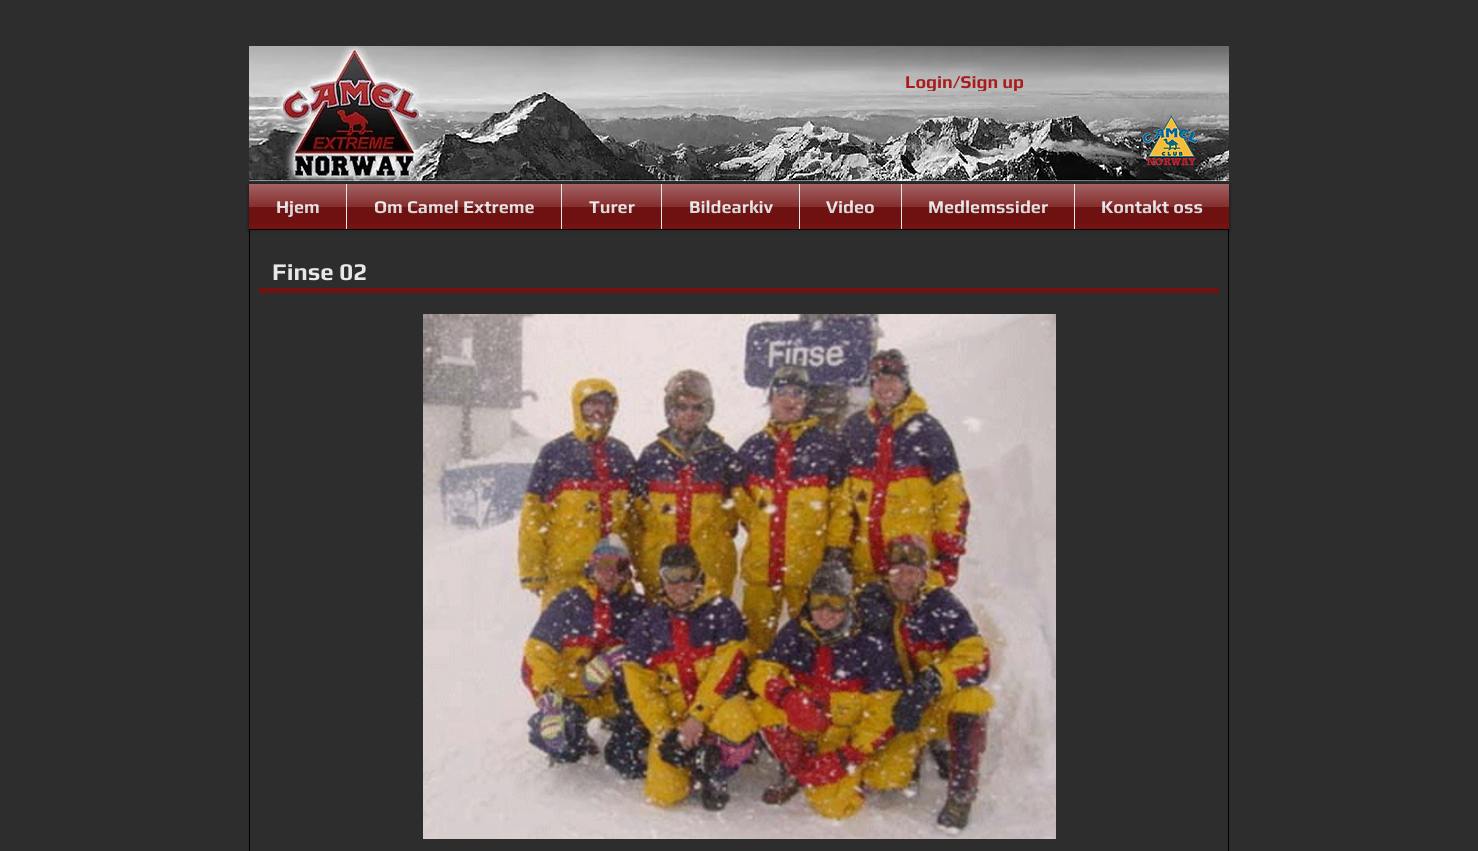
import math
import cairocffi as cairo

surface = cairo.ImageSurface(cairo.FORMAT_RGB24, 1478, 851)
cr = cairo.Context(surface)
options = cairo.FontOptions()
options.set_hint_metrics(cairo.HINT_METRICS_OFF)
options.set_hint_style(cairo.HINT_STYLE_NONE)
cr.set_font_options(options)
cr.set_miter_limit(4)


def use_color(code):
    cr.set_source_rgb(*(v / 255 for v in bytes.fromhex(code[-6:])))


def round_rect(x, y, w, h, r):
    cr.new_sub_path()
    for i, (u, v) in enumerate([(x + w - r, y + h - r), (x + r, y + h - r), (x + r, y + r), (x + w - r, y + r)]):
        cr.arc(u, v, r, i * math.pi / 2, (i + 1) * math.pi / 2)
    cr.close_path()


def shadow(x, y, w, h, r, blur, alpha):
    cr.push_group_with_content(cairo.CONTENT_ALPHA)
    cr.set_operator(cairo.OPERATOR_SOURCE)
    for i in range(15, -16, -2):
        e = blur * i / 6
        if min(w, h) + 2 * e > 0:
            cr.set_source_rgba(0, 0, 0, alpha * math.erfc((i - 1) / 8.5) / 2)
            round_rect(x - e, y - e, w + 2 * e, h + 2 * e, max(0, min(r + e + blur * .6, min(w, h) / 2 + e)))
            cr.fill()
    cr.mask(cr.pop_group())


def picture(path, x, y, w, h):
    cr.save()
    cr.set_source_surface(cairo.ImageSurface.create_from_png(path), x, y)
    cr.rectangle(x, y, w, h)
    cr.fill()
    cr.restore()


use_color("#2d2d2d")
cr.paint()
picture("img1.png", 249, 46, 980, 135)
cr.save()
cr.rectangle(871, 72, 188, 19)
cr.clip()
cr.select_font_face("Play", cairo.FONT_SLANT_NORMAL, cairo.FONT_WEIGHT_BOLD)
cr.set_font_size(18)
use_color("#aa1b1b")
cr.move_to(905, 88)
cr.show_text("Login/Sign up")
cr.restore()
picture("img2.png", 1142, 115, 56, 52)
use_color("#000000")
shadow(249, 185, 980, 46, 0, 2, 0.6)
use_color("#751212")
cr.rectangle(249, 184, 97, 45)
cr.fill()
cr.select_font_face("Play", cairo.FONT_SLANT_NORMAL, cairo.FONT_WEIGHT_BOLD)
cr.set_font_size(18)
use_color("#e8e8e8")
cr.move_to(276, 213)
cr.show_text("Hjem")
picture("img3.png", 249, 184, 97, 40)
use_color("#751212")
cr.rectangle(347, 184, 214, 45)
cr.fill()
use_color("#e8e8e8")
cr.rectangle(346, 184, 1, 46)
cr.fill()
cr.move_to(374, 213)
cr.show_text("Om Camel Extreme")
picture("img4.png", 347, 184, 214, 40)
use_color("#751212")
cr.rectangle(562, 184, 99, 45)
cr.fill()
use_color("#e8e8e8")
cr.rectangle(561, 184, 1, 46)
cr.fill()
cr.move_to(589, 213)
cr.show_text("Turer")
picture("img5.png", 562, 184, 99, 40)
use_color("#751212")
cr.rectangle(662, 184, 137, 45)
cr.fill()
use_color("#e8e8e8")
cr.rectangle(661, 184, 1, 46)
cr.fill()
cr.move_to(689, 213)
cr.show_text("Bildearkiv")
picture("img6.png", 662, 184, 137, 40)
use_color("#751212")
cr.rectangle(800, 184, 101, 45)
cr.fill()
use_color("#e8e8e8")
cr.rectangle(799, 184, 1, 46)
cr.fill()
cr.move_to(826, 213)
cr.show_text("Video")
picture("img7.png", 800, 184, 101, 40)
use_color("#751212")
cr.rectangle(902, 184, 172, 45)
cr.fill()
use_color("#e8e8e8")
cr.rectangle(901, 184, 1, 46)
cr.fill()
cr.move_to(928, 213)
cr.show_text("Medlemssider")
picture("img8.png", 902, 184, 172, 40)
use_color("#751212")
cr.rectangle(1075, 184, 154, 45)
cr.fill()
use_color("#e8e8e8")
cr.rectangle(1074, 184, 1, 46)
cr.fill()
cr.move_to(1101, 213)
cr.show_text("Kontakt oss")
picture("img9.png", 1075, 184, 154, 40)
cr.set_source_rgba(0.176, 0.176, 0.176, 0.7)
cr.rectangle(250, 230, 978, 3)
cr.fill()
cr.rectangle(249.5, 229.5, 979, 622)
use_color("#000000")
cr.set_line_width(1)
cr.stroke()
cr.set_font_size(24)
use_color("#e8e8e8")
cr.move_to(272, 280)
cr.show_text("Finse 02")
use_color("#711212")
cr.rectangle(259, 288, 960, 5)
cr.fill()
picture("img10.png", 423, 314, 633, 525)
surface.write_to_png("result.png")
